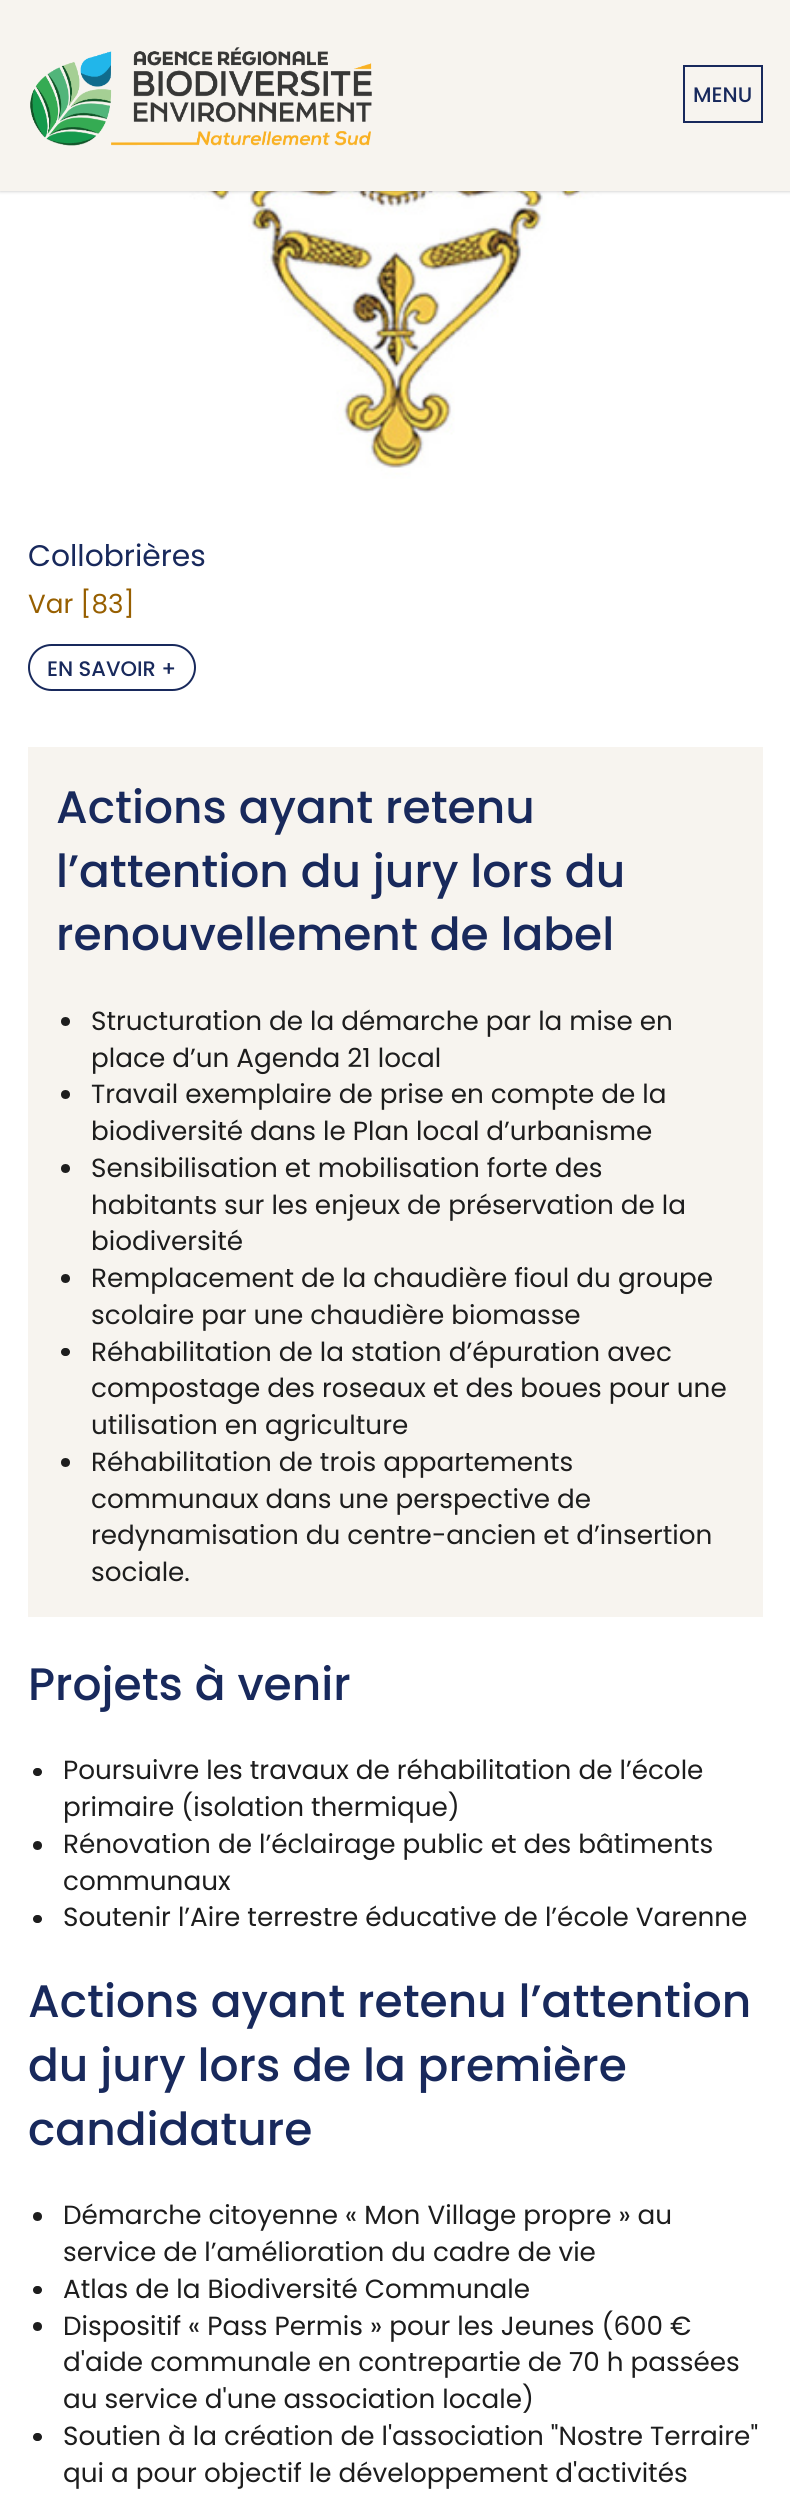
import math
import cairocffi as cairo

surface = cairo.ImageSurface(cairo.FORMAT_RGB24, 790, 2493)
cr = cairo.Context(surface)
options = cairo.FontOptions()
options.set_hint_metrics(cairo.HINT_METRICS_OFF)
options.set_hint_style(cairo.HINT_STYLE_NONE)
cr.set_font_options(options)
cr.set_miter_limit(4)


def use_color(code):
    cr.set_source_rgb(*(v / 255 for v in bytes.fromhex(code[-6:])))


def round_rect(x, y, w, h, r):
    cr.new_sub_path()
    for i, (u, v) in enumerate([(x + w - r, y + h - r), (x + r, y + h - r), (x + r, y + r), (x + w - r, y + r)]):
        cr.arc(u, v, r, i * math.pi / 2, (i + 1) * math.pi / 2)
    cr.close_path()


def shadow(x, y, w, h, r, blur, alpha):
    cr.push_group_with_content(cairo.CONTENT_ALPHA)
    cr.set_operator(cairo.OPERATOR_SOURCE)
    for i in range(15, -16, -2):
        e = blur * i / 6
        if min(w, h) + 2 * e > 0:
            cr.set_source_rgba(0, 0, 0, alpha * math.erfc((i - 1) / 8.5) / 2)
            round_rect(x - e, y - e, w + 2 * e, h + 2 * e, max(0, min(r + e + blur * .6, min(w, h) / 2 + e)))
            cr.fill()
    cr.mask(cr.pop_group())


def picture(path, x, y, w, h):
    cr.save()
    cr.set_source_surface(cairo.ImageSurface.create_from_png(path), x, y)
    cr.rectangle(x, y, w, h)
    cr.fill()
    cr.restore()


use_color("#ffffff")
cr.paint()
picture("img2.png", 28, 191, 735, 317)
use_color("#000000")
shadow(0, 0, 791, 191, 0, 2, 0.25)
use_color("#f7f4ef")
cr.rectangle(0, 0, 790, 191)
cr.fill()
picture("img1.png", 30, 47, 342, 99)
cr.rectangle(684, 66, 78, 56)
use_color("#18295c")
cr.stroke()
cr.select_font_face("Poppins Medium")
cr.set_font_size(21)
cr.move_to(693, 102)
cr.show_text("MENU")
cr.select_font_face("Poppins")
cr.set_font_size(29.75)
cr.move_to(28, 566)
cr.show_text("Collobrières")
cr.set_font_size(26.25)
use_color("#975f00")
cr.move_to(28, 613)
cr.show_text("Var [83]")
round_rect(29, 645, 166, 45, 22.5)
use_color("#18295c")
cr.stroke()
cr.select_font_face("Poppins Medium")
cr.set_font_size(21)
cr.move_to(47, 676)
cr.show_text("EN SAVOIR +")
use_color("#f7f4ef")
cr.rectangle(28, 747, 735, 870)
cr.fill()
cr.set_font_size(45.5)
use_color("#18295c")
cr.move_to(56, 823)
cr.show_text("Actions ayant retenu")
cr.move_to(56, 887)
cr.show_text("l’attention du jury lors du")
cr.move_to(56, 950)
cr.show_text("renouvellement de label")
use_color("#1d1d1d")
cr.new_path()
cr.arc(65.5, 1021.5, 4.5, 0, 2 * math.pi)
cr.fill()
cr.select_font_face("Poppins")
cr.set_font_size(26.25)
cr.move_to(91, 1030)
cr.show_text("Structuration de la démarche par la mise en")
cr.move_to(91, 1067)
cr.show_text("place d’un Agenda 21 local")
cr.new_path()
cr.arc(65.5, 1094.5, 4.5, 0, 2 * math.pi)
cr.fill()
cr.move_to(91, 1103)
cr.show_text("Travail exemplaire de prise en compte de la")
cr.move_to(91, 1140)
cr.show_text("biodiversité dans le Plan local d’urbanisme")
cr.new_path()
cr.arc(65.5, 1168.5, 4.5, 0, 2 * math.pi)
cr.fill()
cr.move_to(91, 1177)
cr.show_text("Sensibilisation et mobilisation forte des")
cr.move_to(91, 1214)
cr.show_text("habitants sur les enjeux de préservation de la")
cr.move_to(91, 1250)
cr.show_text("biodiversité")
cr.new_path()
cr.arc(65.5, 1278.5, 4.5, 0, 2 * math.pi)
cr.fill()
cr.move_to(91, 1287)
cr.show_text("Remplacement de la chaudière fioul du groupe")
cr.move_to(91, 1324)
cr.show_text("scolaire par une chaudière biomasse")
round_rect(61, 1348, 9, 8, 4)
cr.fill()
cr.move_to(91, 1361)
cr.show_text("Réhabilitation de la station d’épuration avec")
cr.move_to(91, 1397)
cr.show_text("compostage des roseaux et des boues pour une")
cr.move_to(91, 1434)
cr.show_text("utilisation en agriculture")
cr.new_path()
cr.arc(65.5, 1462.5, 4.5, 0, 2 * math.pi)
cr.fill()
cr.move_to(91, 1471)
cr.show_text("Réhabilitation de trois appartements")
cr.move_to(91, 1508)
cr.show_text("communaux dans une perspective de")
cr.move_to(91, 1544)
cr.show_text("redynamisation du centre-ancien et d’insertion")
cr.move_to(91, 1581)
cr.show_text("sociale.")
cr.select_font_face("Poppins Medium")
cr.set_font_size(45.5)
use_color("#18295c")
cr.move_to(28, 1700)
cr.show_text("Projets à venir")
use_color("#1d1d1d")
round_rect(33, 1768, 9, 8, 4)
cr.fill()
cr.select_font_face("Poppins")
cr.set_font_size(26.25)
cr.move_to(63, 1779)
cr.show_text("Poursuivre les travaux de réhabilitation de l’école")
cr.move_to(63, 1816)
cr.show_text("primaire (isolation thermique)")
cr.new_path()
cr.arc(37.5, 1845.5, 4.5, 0, 2 * math.pi)
cr.fill()
cr.move_to(63, 1853)
cr.show_text("Rénovation de l’éclairage public et des bâtiments")
cr.move_to(63, 1890)
cr.show_text("communaux")
round_rect(33, 1915, 9, 8, 4)
cr.fill()
cr.move_to(63, 1926)
cr.show_text("Soutenir l’Aire terrestre éducative de l’école Varenne")
cr.select_font_face("Poppins Medium")
cr.set_font_size(45.5)
use_color("#18295c")
cr.move_to(28, 2017)
cr.show_text("Actions ayant retenu l’attention")
cr.move_to(28, 2081)
cr.show_text("du jury lors de la première")
cr.move_to(28, 2145)
cr.show_text("candidature")
use_color("#1d1d1d")
cr.new_path()
cr.arc(37.5, 2216.5, 4.5, 0, 2 * math.pi)
cr.fill()
cr.select_font_face("Poppins")
cr.set_font_size(26.25)
cr.move_to(63, 2224)
cr.show_text("Démarche citoyenne « Mon Village propre » au")
cr.move_to(63, 2261)
cr.show_text("service de l’amélioration du cadre de vie")
round_rect(33, 2286, 9, 8, 4)
cr.fill()
cr.move_to(63, 2298)
cr.show_text("Atlas de la Biodiversité Communale")
cr.new_path()
cr.arc(37.5, 2326.5, 4.5, 0, 2 * math.pi)
cr.fill()
cr.move_to(63, 2335)
cr.show_text("Dispositif « Pass Permis » pour les Jeunes (600 €")
cr.move_to(63, 2371)
cr.show_text("d'aide communale en contrepartie de 70 h passées")
cr.move_to(63, 2408)
cr.show_text("au service d'une association locale)")
round_rect(33, 2433, 9, 8, 4)
cr.fill()
cr.move_to(63, 2445)
cr.show_text("Soutien à la création de l'association \"Nostre Terraire\"")
cr.move_to(63, 2482)
cr.show_text("qui a pour objectif le développement d'activités")
surface.write_to_png("result.png")
